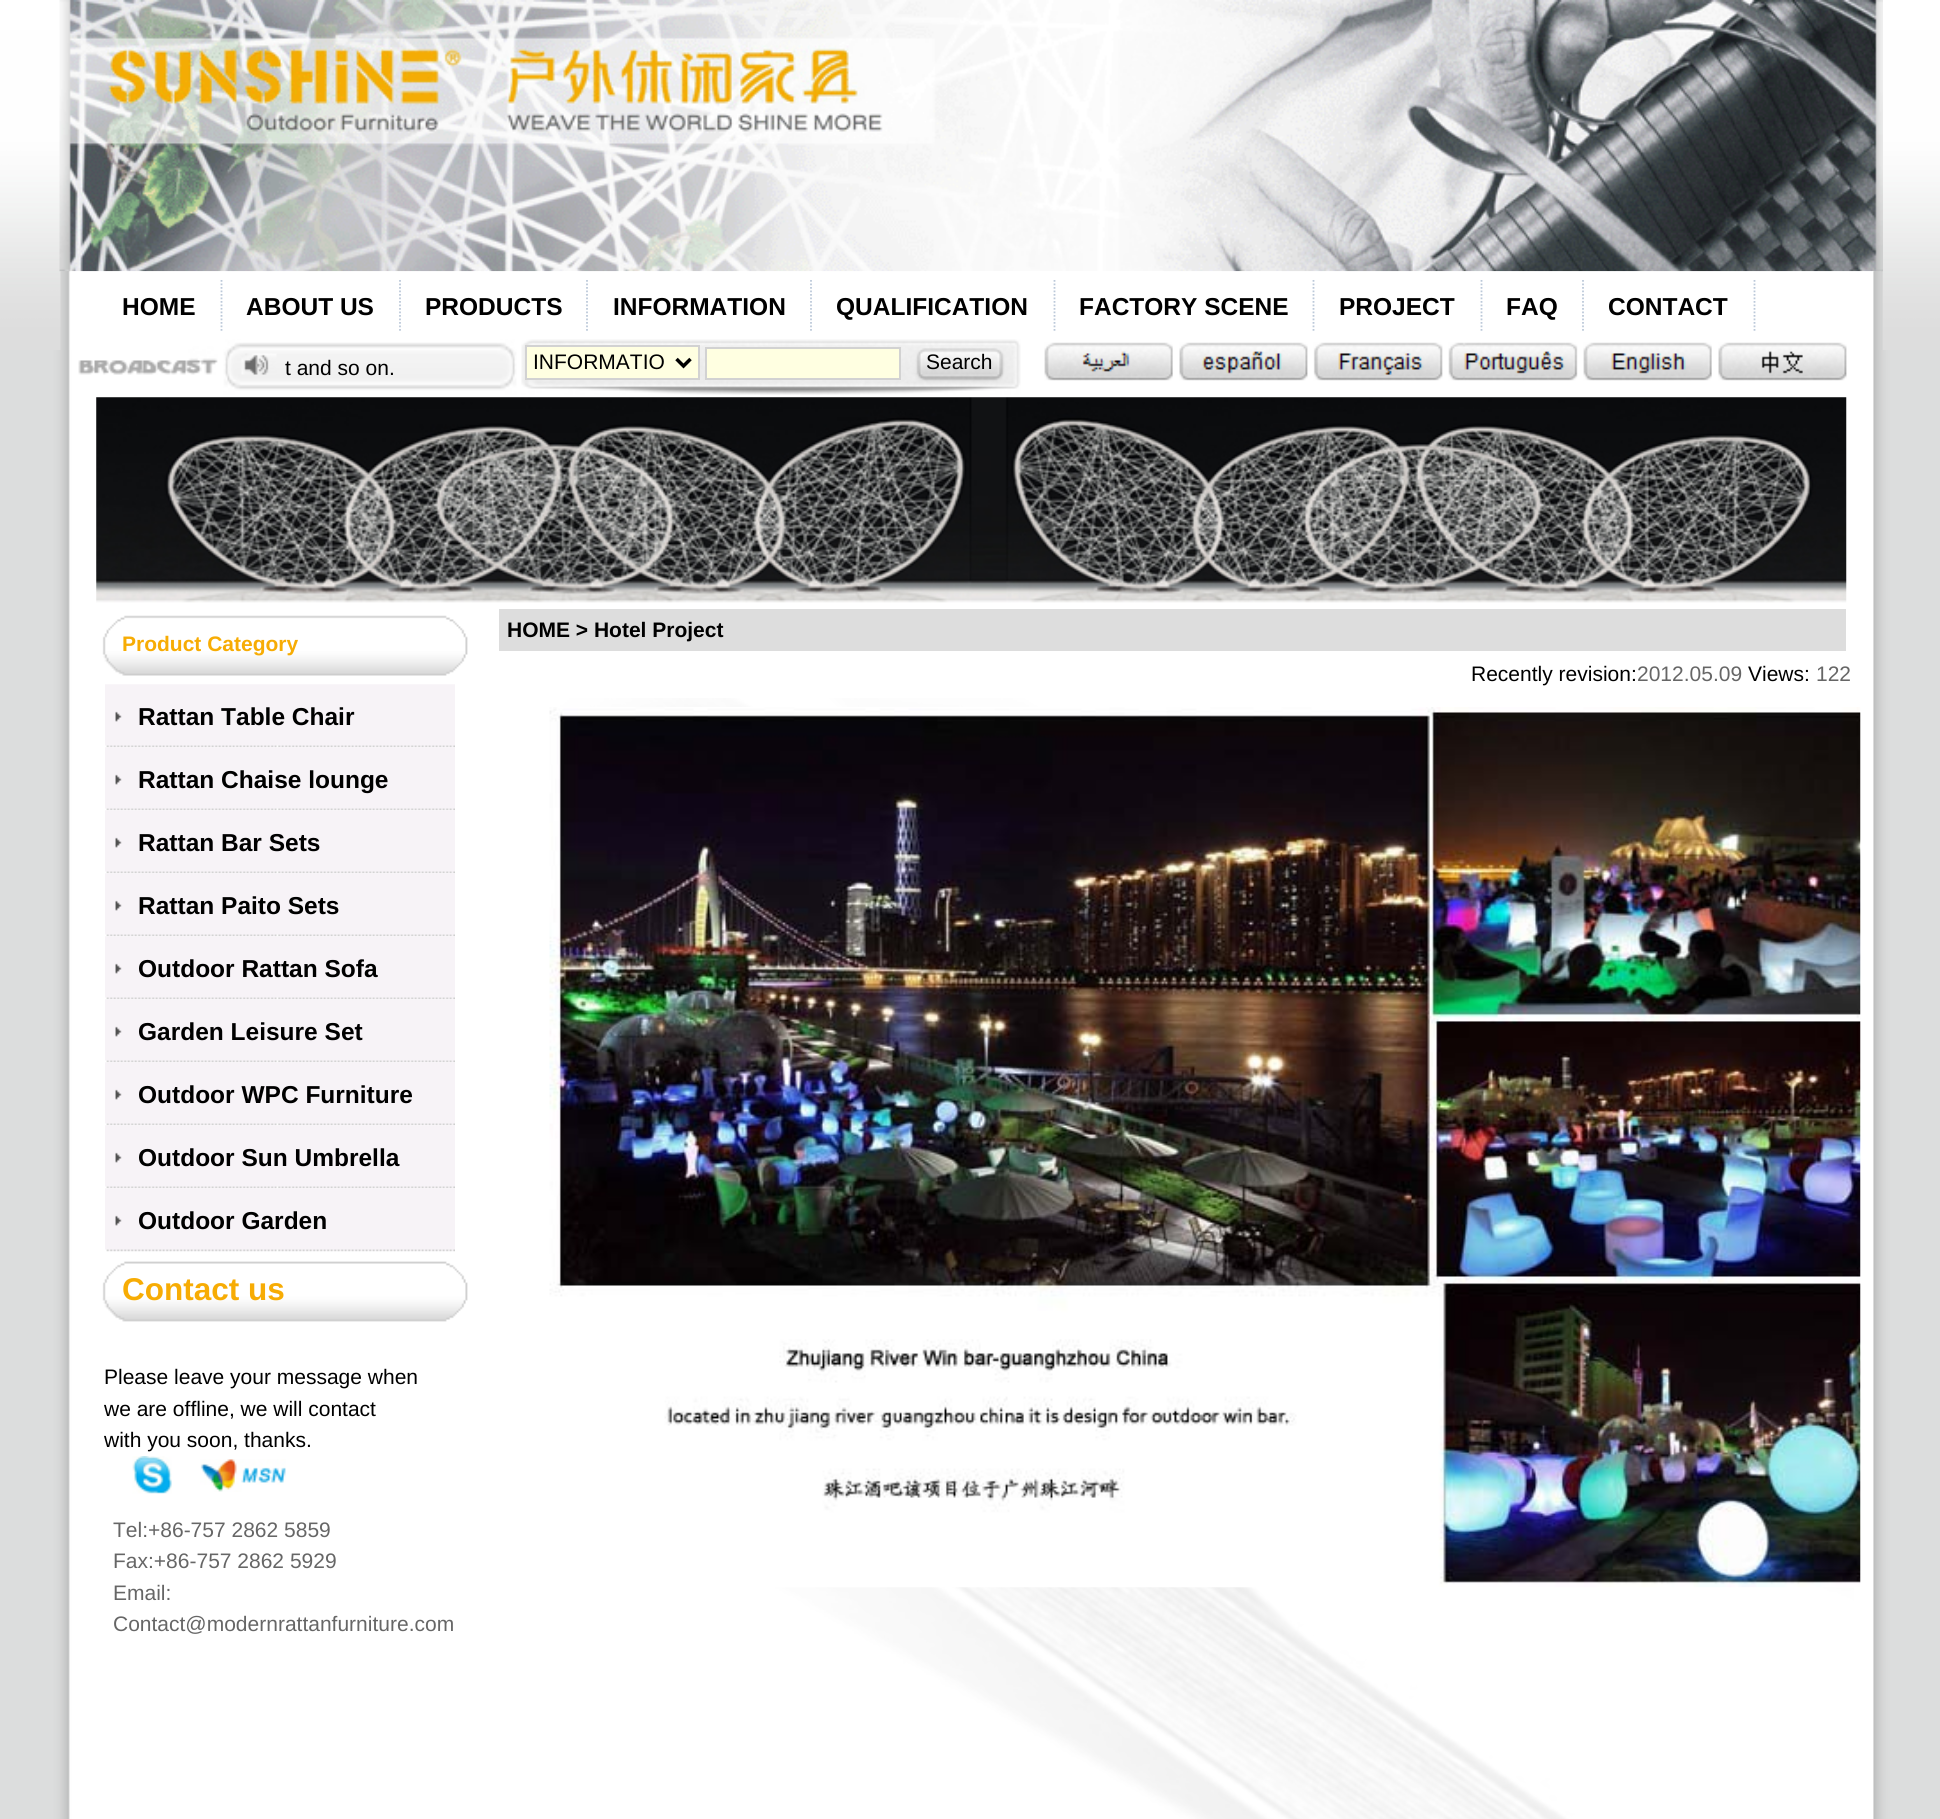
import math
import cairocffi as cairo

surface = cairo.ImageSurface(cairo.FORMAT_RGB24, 1940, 1819)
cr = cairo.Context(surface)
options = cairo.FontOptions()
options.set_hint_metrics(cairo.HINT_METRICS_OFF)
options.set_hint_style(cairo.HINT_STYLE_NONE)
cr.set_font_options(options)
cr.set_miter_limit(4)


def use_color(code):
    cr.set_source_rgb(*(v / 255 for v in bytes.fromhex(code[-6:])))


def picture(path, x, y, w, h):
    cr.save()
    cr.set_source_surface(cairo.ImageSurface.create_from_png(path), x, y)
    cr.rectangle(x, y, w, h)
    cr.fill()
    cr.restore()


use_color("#ffffff")
cr.paint()
picture("img1.png", 0, 0, 1940, 350)
picture("img2.png", 61, 271, 1822, 79)
picture("img3.png", 59, 0, 1824, 272)
picture("img4.png", 60, 271, 1821, 79)
cr.new_path()
cr.move_to(221.5, 280)
cr.line_to(221.5, 332.5)
use_color("#bcc9d9")
cr.set_line_width(1.8)
cr.set_dash([1.75, 1.75])
cr.stroke()
cr.select_font_face("Liberation Sans", cairo.FONT_SLANT_NORMAL, cairo.FONT_WEIGHT_BOLD)
cr.set_font_size(24.5)
use_color("#000000")
cr.move_to(122, 315)
cr.show_text("HOME")
cr.new_path()
cr.move_to(400, 280)
cr.line_to(400, 332.5)
use_color("#bcc9d9")
cr.stroke()
use_color("#000000")
cr.move_to(246, 315)
cr.show_text("ABOUT US")
cr.new_path()
cr.move_to(587, 280)
cr.line_to(587, 332.5)
use_color("#bcc9d9")
cr.stroke()
use_color("#000000")
cr.move_to(425, 315)
cr.show_text("PRODUCTS")
cr.new_path()
cr.move_to(811, 280)
cr.line_to(811, 332.5)
use_color("#bcc9d9")
cr.stroke()
use_color("#000000")
cr.move_to(613, 315)
cr.show_text("INFORMATION")
cr.new_path()
cr.move_to(1054.5, 280)
cr.line_to(1054.5, 332.5)
use_color("#bcc9d9")
cr.stroke()
use_color("#000000")
cr.move_to(836, 315)
cr.show_text("QUALIFICATION")
cr.new_path()
cr.move_to(1313.5, 280)
cr.line_to(1313.5, 332.5)
use_color("#bcc9d9")
cr.stroke()
use_color("#000000")
cr.move_to(1079, 315)
cr.show_text("FACTORY SCENE")
cr.new_path()
cr.move_to(1481.5, 280)
cr.line_to(1481.5, 332.5)
use_color("#bcc9d9")
cr.stroke()
use_color("#000000")
cr.move_to(1339, 315)
cr.show_text("PROJECT")
cr.new_path()
cr.move_to(1583, 280)
cr.line_to(1583, 332.5)
use_color("#bcc9d9")
cr.stroke()
use_color("#000000")
cr.move_to(1506, 315)
cr.show_text("FAQ")
cr.new_path()
cr.move_to(1754.5, 280)
cr.line_to(1754.5, 332.5)
use_color("#bcc9d9")
cr.stroke()
use_color("#000000")
cr.move_to(1608, 315)
cr.show_text("CONTACT")
picture("img12.png", 0, 350, 1940, 1469)
picture("img5.png", 78, 339, 943, 56)
cr.select_font_face("Liberation Sans")
cr.set_font_size(21)
cr.move_to(285, 375)
cr.show_text("t and so on.")
use_color("#ffffe1")
cr.rectangle(526, 346, 173, 33)
cr.fill_preserve()
use_color("#d2d2d2")
cr.set_line_width(2)
cr.set_dash([])
cr.stroke()
cr.new_path()
cr.move_to(676.5, 359)
cr.line_to(683.5, 366)
cr.line_to(690.5, 359)
use_color("#000000")
cr.set_line_width(3.5)
cr.stroke()
cr.move_to(533, 369)
cr.show_text("INFORMATIO")
use_color("#ffffe1")
cr.rectangle(706, 348, 194, 31)
cr.fill_preserve()
use_color("#d2d2d2")
cr.set_line_width(2)
cr.stroke()
use_color("#000000")
cr.move_to(926, 369)
cr.show_text("Search")
picture("img6.png", 1044, 342, 129, 39)
picture("img7.png", 1179, 342, 129, 39)
picture("img8.png", 1313, 342, 130, 39)
picture("img9.png", 1448, 342, 130, 39)
picture("img10.png", 1583, 342, 129, 39)
picture("img11.png", 1718, 342, 129, 39)
use_color("#f0f0f0")
cr.rectangle(96, 397, 1750, 175)
cr.fill()
picture("img13.png", 96, 397, 1751, 206)
picture("img14.png", 102, 615, 366, 61)
cr.select_font_face("Liberation Sans", cairo.FONT_SLANT_NORMAL, cairo.FONT_WEIGHT_BOLD)
use_color("#f7ac04")
cr.move_to(122, 651)
cr.show_text("Product Category")
picture("img15.png", 105, 684, 350, 64)
cr.set_font_size(24.5)
use_color("#000000")
cr.move_to(138, 725)
cr.show_text("Rattan Table Chair")
picture("img16.png", 105, 747, 350, 64)
cr.move_to(138, 788)
cr.show_text("Rattan Chaise lounge")
picture("img16.png", 105, 810, 350, 64)
cr.move_to(138, 851)
cr.show_text("Rattan Bar Sets")
picture("img16.png", 105, 873, 350, 64)
cr.move_to(138, 914)
cr.show_text("Rattan Paito Sets")
picture("img16.png", 105, 936, 350, 64)
cr.move_to(138, 977)
cr.show_text("Outdoor Rattan Sofa")
picture("img16.png", 105, 999, 350, 64)
cr.move_to(138, 1040)
cr.show_text("Garden Leisure Set")
picture("img16.png", 105, 1062, 350, 64)
cr.move_to(138, 1103)
cr.show_text("Outdoor WPC Furniture")
picture("img16.png", 105, 1125, 350, 64)
cr.move_to(138, 1166)
cr.show_text("Outdoor Sun Umbrella")
picture("img16.png", 105, 1188, 350, 64)
cr.move_to(138, 1229)
cr.show_text("Outdoor Garden")
picture("img17.png", 102, 1261, 366, 61)
cr.set_font_size(31.5)
use_color("#f7ac04")
cr.move_to(122, 1300)
cr.show_text("Contact us")
cr.select_font_face("Liberation Sans")
cr.set_font_size(21)
use_color("#000000")
cr.move_to(104, 1384)
cr.show_text("Please leave your message when")
cr.move_to(104, 1416)
cr.show_text("we are offline, we will contact")
cr.move_to(104, 1447)
cr.show_text("with you soon, thanks.")
picture("img18.png", 132, 1456, 40, 38)
picture("img19.png", 200, 1459, 86, 33)
use_color("#666666")
cr.move_to(113, 1537)
cr.show_text("Tel:+86-757 2862 5859")
cr.move_to(113, 1568)
cr.show_text("Fax:+86-757 2862 5929")
cr.move_to(113, 1600)
cr.show_text("Email:")
cr.move_to(113, 1631)
cr.show_text("Contact@modernrattanfurniture.com")
picture("img20.png", 560, 698, 1294, 1121)
use_color("#dddddd")
cr.rectangle(499, 609, 1347, 42)
cr.fill()
cr.select_font_face("Liberation Sans", cairo.FONT_SLANT_NORMAL, cairo.FONT_WEIGHT_BOLD)
use_color("#000000")
cr.move_to(507, 637)
cr.show_text("HOME > Hotel Project")
cr.select_font_face("Liberation Sans")
cr.move_to(1471, 681)
cr.show_text("Recently revision:")
use_color("#666666")
cr.move_to(1637, 681)
cr.show_text("2012.05.09")
use_color("#000000")
cr.move_to(1748, 681)
cr.show_text("Views:")
use_color("#666666")
cr.move_to(1816, 681)
cr.show_text("122")
picture("img21.png", 549, 707, 1312, 881)
surface.write_to_png("result.png")
